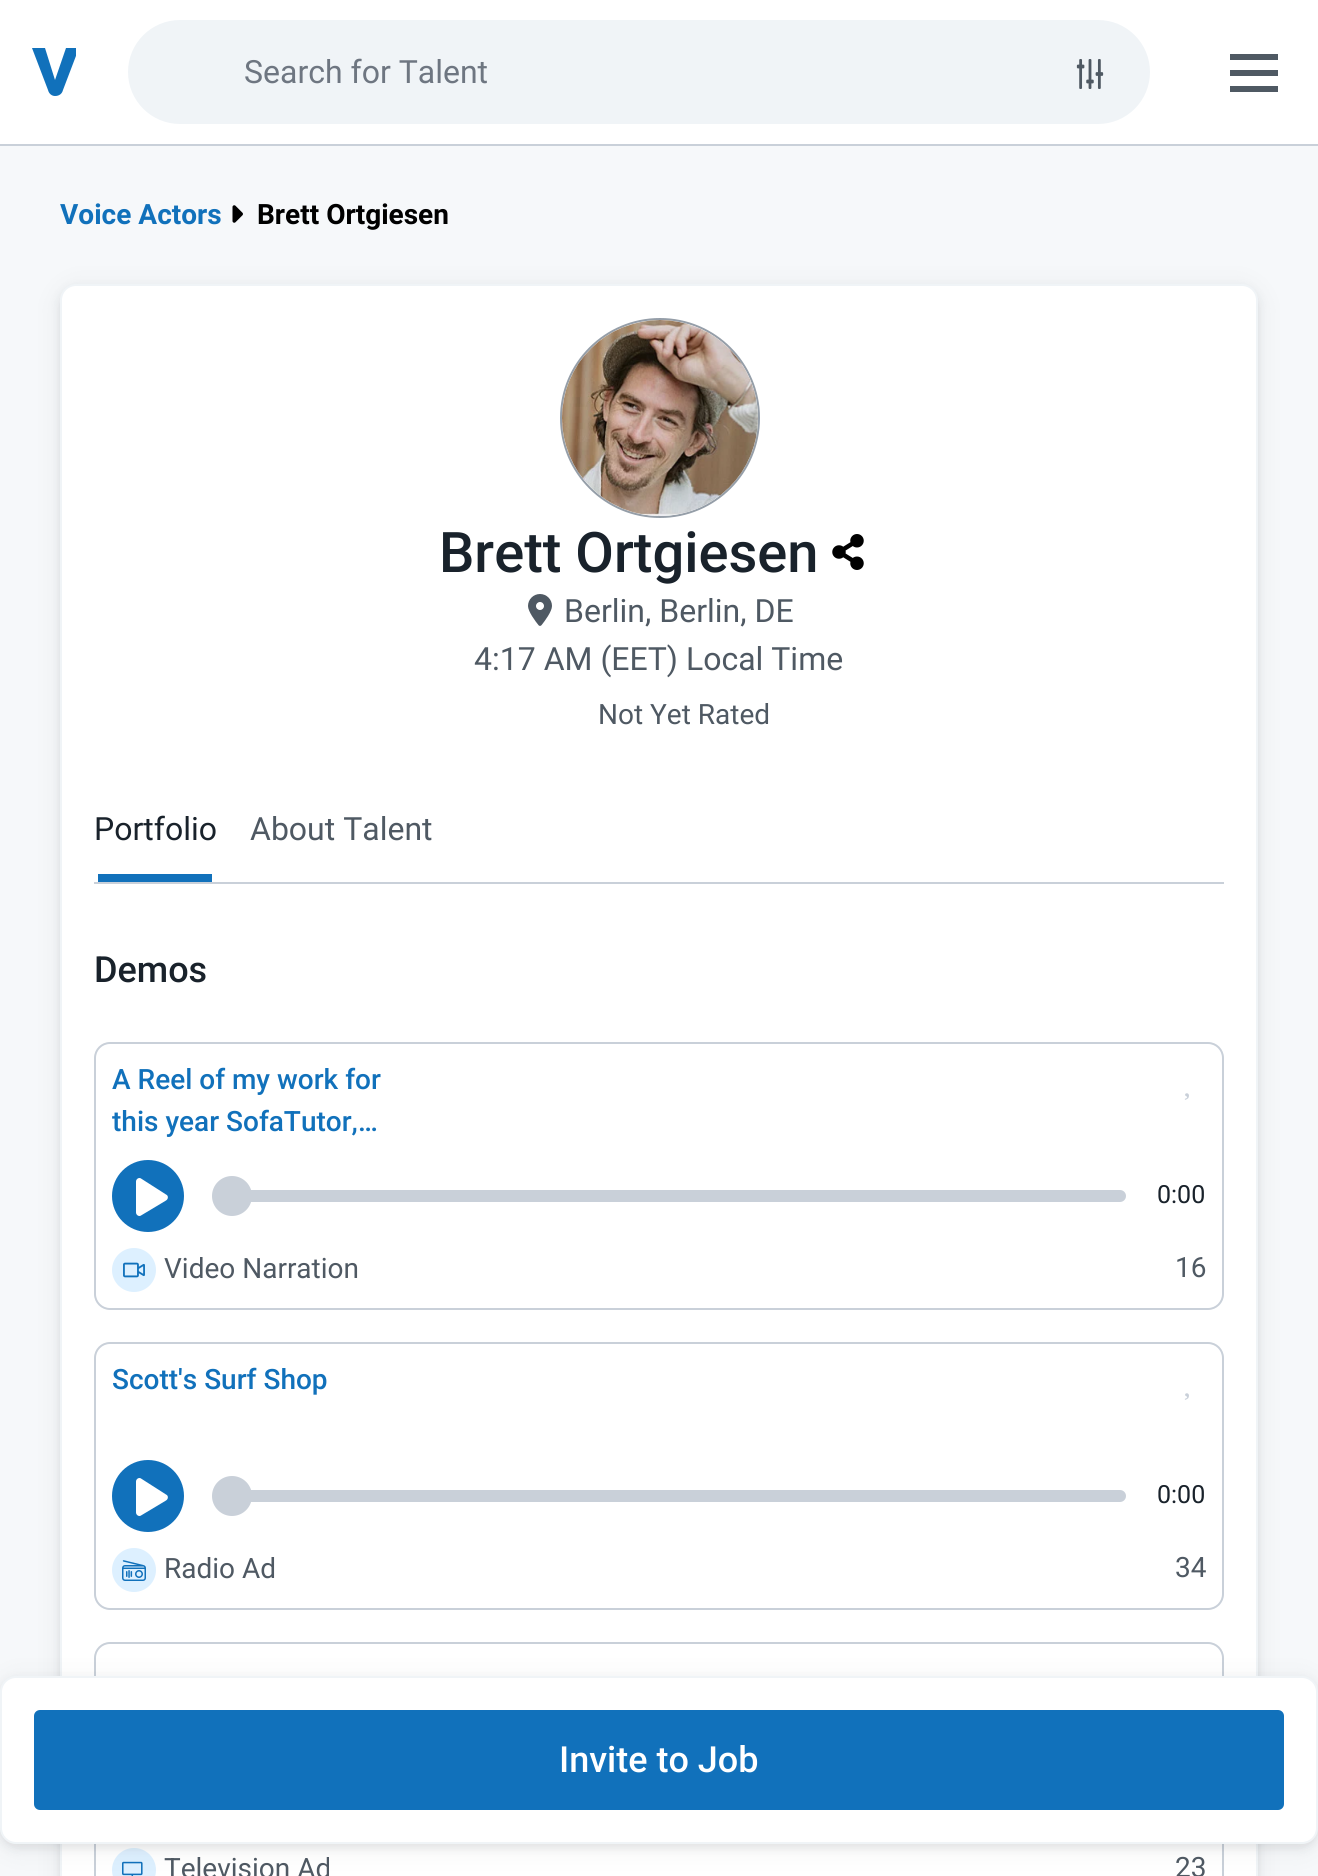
import math
import cairocffi as cairo

surface = cairo.ImageSurface(cairo.FORMAT_RGB24, 1318, 1876)
cr = cairo.Context(surface)
options = cairo.FontOptions()
options.set_hint_metrics(cairo.HINT_METRICS_OFF)
options.set_hint_style(cairo.HINT_STYLE_NONE)
cr.set_font_options(options)
cr.set_miter_limit(4)


def use_color(code):
    cr.set_source_rgb(*(v / 255 for v in bytes.fromhex(code[-6:])))


def round_rect(x, y, w, h, r):
    cr.new_sub_path()
    for i, (u, v) in enumerate([(x + w - r, y + h - r), (x + r, y + h - r), (x + r, y + r), (x + w - r, y + r)]):
        cr.arc(u, v, r, i * math.pi / 2, (i + 1) * math.pi / 2)
    cr.close_path()


def shadow(x, y, w, h, r, blur, alpha):
    cr.push_group_with_content(cairo.CONTENT_ALPHA)
    cr.set_operator(cairo.OPERATOR_SOURCE)
    for i in range(15, -16, -2):
        e = blur * i / 6
        if min(w, h) + 2 * e > 0:
            cr.set_source_rgba(0, 0, 0, alpha * math.erfc((i - 1) / 8.5) / 2)
            round_rect(x - e, y - e, w + 2 * e, h + 2 * e, max(0, min(r + e + blur * .6, min(w, h) / 2 + e)))
            cr.fill()
    cr.mask(cr.pop_group())


def picture(path, x, y, w, h):
    cr.save()
    cr.set_source_surface(cairo.ImageSurface.create_from_png(path), x, y)
    cr.rectangle(x, y, w, h)
    cr.fill()
    cr.restore()


use_color("#ffffff")
cr.paint()
use_color("#c9d0d9")
cr.rectangle(0, 144, 1318, 2)
cr.fill()
cr.save()
cr.rectangle(32, 48, 44, 48)
cr.clip()
use_color("#1171bb")
cr.new_path()
cr.move_to(55, 96)
cr.curve_to(52, 96, 49, 94, 48, 90)
cr.line_to(32, 48)
cr.line_to(45, 48)
cr.line_to(55, 80)
cr.line_to(66, 48)
cr.line_to(79, 48)
cr.line_to(63, 90)
cr.curve_to(62, 94, 59, 96, 55, 96)
cr.close_path()
cr.fill()
cr.restore()
use_color("#f0f4f7")
round_rect(130, 22, 1018, 100, 50)
cr.fill_preserve()
cr.set_line_width(4)
cr.stroke()
cr.select_font_face("Roboto")
cr.set_font_size(32)
use_color("#6e7681")
cr.move_to(244, 83)
cr.show_text("Search for Talent")
picture("img1.png", 1076, 59, 28, 30)
use_color("#4f5963")
cr.rectangle(1230, 54, 48, 6)
cr.fill()
cr.rectangle(1230, 70, 48, 6)
cr.fill()
cr.rectangle(1230, 86, 48, 6)
cr.fill()
use_color("#f6f8fa")
cr.rectangle(0, 146, 1318, 1730)
cr.fill()
cr.select_font_face("Roboto", cairo.FONT_SLANT_NORMAL, cairo.FONT_WEIGHT_BOLD)
cr.set_font_size(28)
use_color("#1171bb")
cr.move_to(60, 224)
cr.show_text("Voice Actors")
picture("img2.png", 232, 205, 11, 18)
use_color("#000000")
cr.move_to(257, 224)
cr.show_text("Brett Ortgiesen")
use_color("#19222b")
shadow(60, 288, 1198, 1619, 16, 5, 0.1)
use_color("#000000")
shadow(60, 288, 1198, 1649, 16, 15, 0.05)
use_color("#ffffff")
round_rect(61, 285, 1196, 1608, 15)
cr.fill_preserve()
use_color("#f0f4f7")
cr.set_line_width(2)
cr.stroke()
cr.arc(660, 418, 99, 0, 2 * math.pi)
use_color("#959ea8")
cr.stroke()
picture("img3.png", 562, 320, 196, 196)
cr.select_font_face("Roboto Medium")
cr.set_font_size(56)
use_color("#19222b")
cr.move_to(439, 572)
cr.show_text("Brett Ortgiesen")
picture("img4.png", 832, 534, 32, 36)
picture("img5.png", 528, 594, 24, 32)
cr.select_font_face("Roboto")
cr.set_font_size(32)
use_color("#4f5963")
cr.move_to(564, 622)
cr.show_text("Berlin, Berlin, DE")
cr.move_to(474, 670)
cr.show_text("4:17 AM (EET) Local Time")
cr.set_font_size(28)
cr.move_to(598, 724)
cr.show_text("Not Yet Rated")
use_color("#c9d0d9")
cr.rectangle(94, 882, 1130, 2)
cr.fill()
cr.set_font_size(32)
use_color("#19222b")
cr.move_to(94, 840)
cr.show_text("Portfolio")
use_color("#1171bb")
cr.rectangle(98, 874, 114, 8)
cr.fill()
use_color("#4f5963")
cr.move_to(250, 840)
cr.show_text("About Talent")
cr.select_font_face("Roboto Medium")
cr.set_font_size(36)
use_color("#19222b")
cr.move_to(94, 982)
cr.show_text("Demos")
round_rect(95, 1043, 1128, 266, 15)
use_color("#c9d0d9")
cr.stroke()
cr.set_font_size(28)
use_color("#1171bb")
cr.move_to(112, 1089)
cr.show_text("A Reel of my work for")
cr.move_to(112, 1131)
cr.show_text("this year SofaTutor,…")
picture("img6.png", 1184, 1093, 5, 7)
cr.arc(148, 1196, 36, 0, 2 * math.pi)
cr.fill()
use_color("#ffffff")
cr.set_fill_rule(cairo.FILL_RULE_EVEN_ODD)
cr.new_path()
cr.move_to(166, 1194.5)
cr.line_to(141, 1178.5)
cr.curve_to(139, 1177, 136, 1179, 136, 1181.5)
cr.line_to(136, 1212.5)
cr.curve_to(136, 1215, 139, 1217, 141, 1215.5)
cr.line_to(166, 1200.5)
cr.curve_to(168.5, 1199, 168.5, 1195.5, 166, 1194.5)
cr.close_path()
cr.fill()
use_color("#c9d0d9")
round_rect(232, 1190, 894, 12, 6)
cr.fill()
cr.arc(232, 1196, 20, 0, 2 * math.pi)
cr.fill()
cr.select_font_face("Roboto")
cr.set_font_size(25)
use_color("#19222b")
cr.move_to(1157, 1203)
cr.show_text("0:00")
use_color("#ddf0ff")
cr.new_path()
cr.arc(134, 1270, 22, 0, 2 * math.pi)
cr.fill()
picture("img7.png", 123, 1262, 22, 16)
cr.set_font_size(28)
use_color("#4f5963")
cr.move_to(164, 1278)
cr.show_text("Video Narration")
cr.move_to(1175, 1277)
cr.show_text("16")
round_rect(95, 1343, 1128, 266, 15)
use_color("#c9d0d9")
cr.stroke()
cr.select_font_face("Roboto Medium")
use_color("#1171bb")
cr.move_to(112, 1389)
cr.show_text("Scott's Surf Shop")
picture("img6.png", 1184, 1393, 5, 7)
cr.arc(148, 1496, 36, 0, 2 * math.pi)
cr.fill()
use_color("#ffffff")
cr.new_path()
cr.move_to(166, 1494.5)
cr.line_to(141, 1478.5)
cr.curve_to(139, 1477, 136, 1479, 136, 1481.5)
cr.line_to(136, 1512.5)
cr.curve_to(136, 1515, 139, 1517, 141, 1515.5)
cr.line_to(166, 1500.5)
cr.curve_to(168.5, 1499, 168.5, 1495.5, 166, 1494.5)
cr.close_path()
cr.fill()
use_color("#c9d0d9")
round_rect(232, 1490, 894, 12, 6)
cr.fill()
cr.arc(232, 1496, 20, 0, 2 * math.pi)
cr.fill()
cr.select_font_face("Roboto")
cr.set_font_size(25)
use_color("#19222b")
cr.move_to(1157, 1503)
cr.show_text("0:00")
use_color("#ddf0ff")
cr.new_path()
cr.arc(134, 1570, 22, 0, 2 * math.pi)
cr.fill()
picture("img8.png", 122, 1560, 24, 21)
cr.set_font_size(28)
use_color("#4f5963")
cr.move_to(164, 1578)
cr.show_text("Radio Ad")
cr.move_to(1175, 1577)
cr.show_text("34")
round_rect(95, 1643, 1128, 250, 15)
use_color("#c9d0d9")
cr.stroke()
use_color("#ddf0ff")
cr.arc(134, 1870, 22, 0, 2 * math.pi)
cr.fill()
picture("img9.png", 122, 1861, 21, 15)
use_color("#4f5963")
cr.move_to(164, 1878)
cr.show_text("Television Ad")
cr.move_to(1175, 1877)
cr.show_text("23")
use_color("#19222b")
shadow(0, 1680, 1318, 168, 16, 5, 0.1)
use_color("#000000")
shadow(0, 1680, 1318, 168, 16, 15, 0.05)
use_color("#ffffff")
round_rect(1, 1677, 1316, 166, 15)
cr.fill_preserve()
use_color("#f0f4f7")
cr.stroke()
use_color("#1171bb")
round_rect(34, 1710, 1250, 100, 6)
cr.fill()
cr.select_font_face("Roboto Medium")
cr.set_font_size(36)
use_color("#ffffff")
cr.move_to(559, 1772)
cr.show_text("Invite to Job")
surface.write_to_png("result.png")
